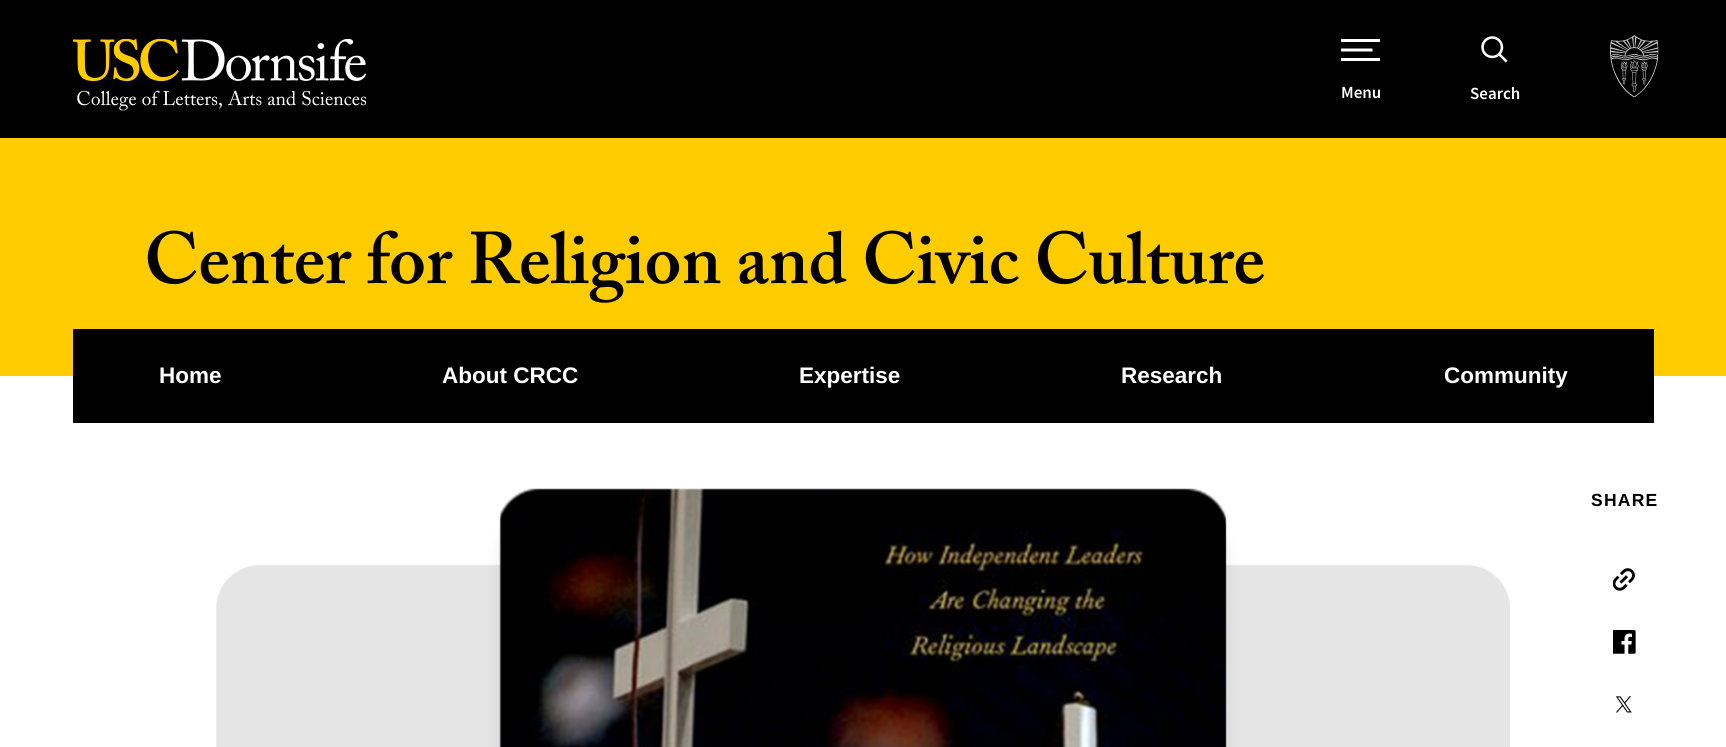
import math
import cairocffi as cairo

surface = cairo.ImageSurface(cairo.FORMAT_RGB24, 1726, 747)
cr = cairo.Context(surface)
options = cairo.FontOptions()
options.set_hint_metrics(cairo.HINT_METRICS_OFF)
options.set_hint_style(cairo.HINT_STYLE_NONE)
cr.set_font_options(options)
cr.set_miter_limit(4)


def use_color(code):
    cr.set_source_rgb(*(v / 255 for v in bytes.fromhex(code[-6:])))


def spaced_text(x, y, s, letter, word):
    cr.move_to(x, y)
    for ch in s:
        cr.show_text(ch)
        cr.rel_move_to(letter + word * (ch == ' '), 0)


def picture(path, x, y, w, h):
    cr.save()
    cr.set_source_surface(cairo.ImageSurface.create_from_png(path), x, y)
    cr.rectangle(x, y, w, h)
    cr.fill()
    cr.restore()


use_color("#ffffff")
cr.paint()
use_color("#000000")
cr.rectangle(0, 0, 1726, 138)
cr.fill()
picture("img1.png", 73, 39, 293, 72)
use_color("#ffffff")
cr.set_fill_rule(cairo.FILL_RULE_EVEN_ODD)
cr.new_path()
cr.move_to(1380, 58)
cr.line_to(1380, 61)
cr.line_to(1341, 61)
cr.line_to(1341, 58)
cr.close_path()
cr.move_to(1372.5, 48.5)
cr.line_to(1372.5, 51.5)
cr.line_to(1341, 51.5)
cr.line_to(1341, 48.5)
cr.close_path()
cr.move_to(1380, 39)
cr.line_to(1380, 42)
cr.line_to(1341, 42)
cr.line_to(1341, 39)
cr.close_path()
cr.fill()
cr.select_font_face("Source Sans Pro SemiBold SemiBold")
cr.set_font_size(17)
cr.move_to(1341, 98)
cr.show_text("Menu")
picture("img2.png", 1481, 36, 27, 27)
cr.move_to(1470, 99)
cr.show_text("Search")
picture("img3.png", 1610, 35, 49, 63)
use_color("#ffcc00")
cr.rectangle(0, 138, 1726, 238)
cr.fill()
cr.select_font_face("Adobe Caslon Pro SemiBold")
cr.set_font_size(72.5)
use_color("#000000")
cr.move_to(144, 283)
cr.show_text("Center for Religion and Civic Culture")
cr.rectangle(73, 329, 1581, 94)
cr.fill()
cr.select_font_face("Liberation Sans", cairo.FONT_SLANT_NORMAL, cairo.FONT_WEIGHT_BOLD)
cr.set_font_size(22.5)
use_color("#ffffff")
cr.move_to(159, 383)
cr.show_text("Home")
cr.move_to(442, 383)
cr.show_text("About CRCC")
cr.move_to(799, 383)
cr.show_text("Expertise")
cr.move_to(1121, 383)
cr.show_text("Research")
cr.move_to(1444, 383)
cr.show_text("Community")
picture("img4.png", 216, 488, 1294, 259)
cr.set_font_size(17.5)
use_color("#000000")
spaced_text(1591, 506, "SHARE", 1.25, 0)
picture("img5.png", 1613, 568, 22, 23)
picture("img6.png", 1613, 630, 23, 24)
picture("img7.png", 1616, 696, 16, 17)
surface.write_to_png("result.png")
